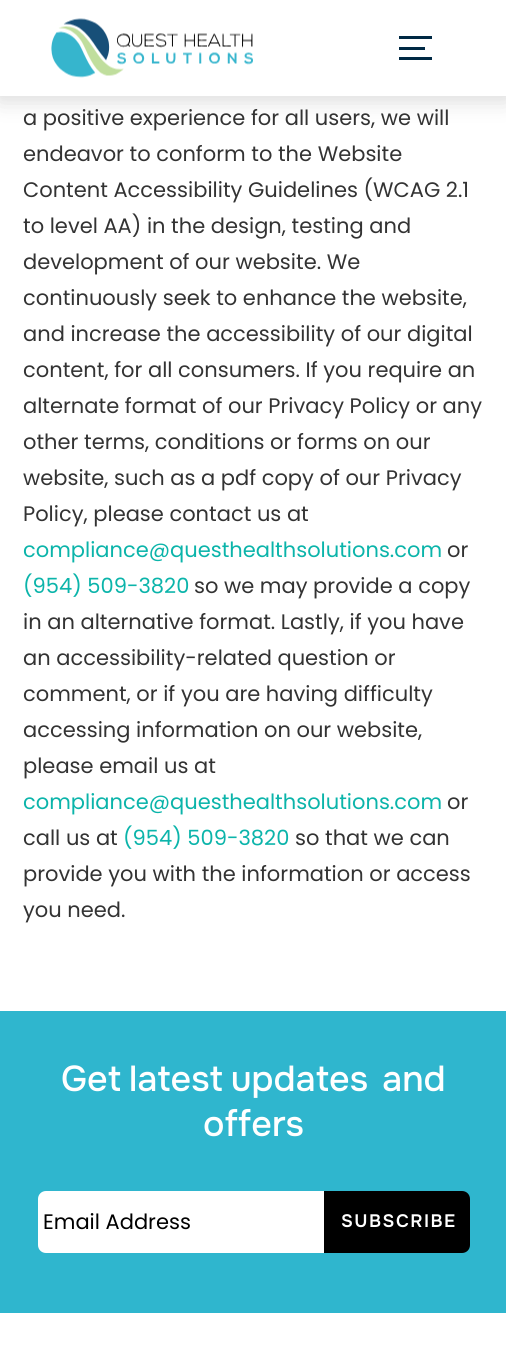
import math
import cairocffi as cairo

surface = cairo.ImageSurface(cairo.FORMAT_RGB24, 506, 1354)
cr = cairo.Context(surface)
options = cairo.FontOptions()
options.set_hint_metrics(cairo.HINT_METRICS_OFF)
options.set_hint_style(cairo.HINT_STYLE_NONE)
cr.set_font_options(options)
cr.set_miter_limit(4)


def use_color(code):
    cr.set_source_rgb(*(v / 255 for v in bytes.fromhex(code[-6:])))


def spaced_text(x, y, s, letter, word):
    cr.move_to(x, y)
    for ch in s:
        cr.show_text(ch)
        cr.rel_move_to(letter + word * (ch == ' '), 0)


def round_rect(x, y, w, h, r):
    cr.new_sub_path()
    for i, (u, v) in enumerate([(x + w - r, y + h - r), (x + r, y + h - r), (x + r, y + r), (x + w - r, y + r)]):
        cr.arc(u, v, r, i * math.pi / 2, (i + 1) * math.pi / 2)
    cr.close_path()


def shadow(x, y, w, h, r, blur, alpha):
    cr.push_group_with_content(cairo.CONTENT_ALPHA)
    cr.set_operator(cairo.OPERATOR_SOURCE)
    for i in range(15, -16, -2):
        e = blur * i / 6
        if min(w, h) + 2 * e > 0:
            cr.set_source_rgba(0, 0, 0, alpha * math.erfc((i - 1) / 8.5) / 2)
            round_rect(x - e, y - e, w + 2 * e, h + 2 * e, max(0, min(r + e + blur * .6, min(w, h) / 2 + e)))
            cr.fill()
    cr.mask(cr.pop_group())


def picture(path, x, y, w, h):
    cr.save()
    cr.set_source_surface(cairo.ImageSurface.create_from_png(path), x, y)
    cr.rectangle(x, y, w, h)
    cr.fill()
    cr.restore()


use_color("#ffffff")
cr.paint()
use_color("#000000")
shadow(-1, -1, 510, 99, 0, 13.5, 0.1)
shadow(0, 0, 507, 96, 0, 11, 0.1)
use_color("#ffffff")
cr.rectangle(0, 0, 506, 96)
cr.fill()
picture("img1.png", 51, 18, 202, 60)
use_color("#002944")
cr.rectangle(399, 36, 33, 3)
cr.fill()
cr.rectangle(399, 47, 26, 3)
cr.fill()
cr.rectangle(399, 57, 33, 3)
cr.fill()
cr.select_font_face("Poppins")
cr.set_font_size(21)
use_color("#333333")
cr.move_to(23, 125)
cr.show_text("a positive experience for all users, we will")
cr.move_to(23, 161)
cr.show_text("endeavor to conform to the Website")
cr.move_to(23, 197)
cr.show_text("Content Accessibility Guidelines (WCAG 2.1")
cr.move_to(23, 233)
cr.show_text("to level AA) in the design, testing and")
cr.move_to(23, 269)
cr.show_text("development of our website. We")
cr.move_to(23, 305)
cr.show_text("continuously seek to enhance the website,")
cr.move_to(23, 341)
cr.show_text("and increase the accessibility of our digital")
cr.move_to(23, 377)
cr.show_text("content, for all consumers. If you require an")
cr.move_to(23, 413)
cr.show_text("alternate format of our Privacy Policy or any")
cr.move_to(23, 449)
cr.show_text("other terms, conditions or forms on our")
cr.move_to(23, 485)
cr.show_text("website, such as a pdf copy of our Privacy")
cr.move_to(23, 521)
cr.show_text("Policy, please contact us at")
use_color("#0bb4aa")
cr.move_to(23, 557)
cr.show_text("compliance@questhealthsolutions.com")
use_color("#333333")
cr.move_to(447, 557)
cr.show_text("or")
use_color("#0bb4aa")
cr.move_to(23, 593)
cr.show_text("(954) 509-3820")
use_color("#333333")
cr.move_to(194, 593)
cr.show_text("so we may provide a copy")
cr.move_to(23, 629)
cr.show_text("in an alternative format. Lastly, if you have")
cr.move_to(23, 665)
cr.show_text("an accessibility-related question or")
cr.move_to(23, 701)
cr.show_text("comment, or if you are having difficulty")
cr.move_to(23, 737)
cr.show_text("accessing information on our website,")
cr.move_to(23, 773)
cr.show_text("please email us at")
use_color("#0bb4aa")
cr.move_to(23, 809)
cr.show_text("compliance@questhealthsolutions.com")
use_color("#333333")
cr.move_to(447, 809)
cr.show_text("or")
cr.move_to(23, 845)
cr.show_text("call us at")
use_color("#0bb4aa")
cr.move_to(123, 845)
cr.show_text("(954) 509-3820")
use_color("#333333")
cr.move_to(295, 845)
cr.show_text("so that we can")
cr.move_to(23, 881)
cr.show_text("provide you with the information or access")
cr.move_to(23, 917)
cr.show_text("you need.")
use_color("#2fb6ce")
cr.rectangle(0, 1011, 506, 302)
cr.fill()
cr.select_font_face("Onest Medium")
cr.set_font_size(36)
use_color("#ffffff")
spaced_text(61, 1091, "Get latest updates", 0, -2)
spaced_text(382, 1091, "and", 0, -2)
cr.move_to(203, 1136)
cr.show_text("offers")
cr.new_path()
cr.move_to(46, 1191)
cr.line_to(324, 1191)
cr.line_to(324, 1253)
cr.line_to(46, 1253)
cr.curve_to(41.5, 1253, 38, 1249.5, 38, 1245)
cr.line_to(38, 1199)
cr.curve_to(38, 1194.5, 41.5, 1191, 46, 1191)
cr.close_path()
cr.fill()
cr.select_font_face("Poppins")
cr.set_font_size(21)
use_color("#000000")
cr.move_to(43, 1229)
cr.show_text("Email Address")
cr.new_path()
cr.move_to(324, 1191)
cr.line_to(462, 1191)
cr.curve_to(466.5, 1191, 470, 1194.5, 470, 1199)
cr.line_to(470, 1245)
cr.curve_to(470, 1249.5, 466.5, 1253, 462, 1253)
cr.line_to(324, 1253)
cr.close_path()
cr.fill()
cr.select_font_face("Onest SemiBold")
cr.set_font_size(18)
use_color("#ffffff")
spaced_text(341, 1227, "SUBSCRIBE", 1.5, 0)
surface.write_to_png("result.png")
